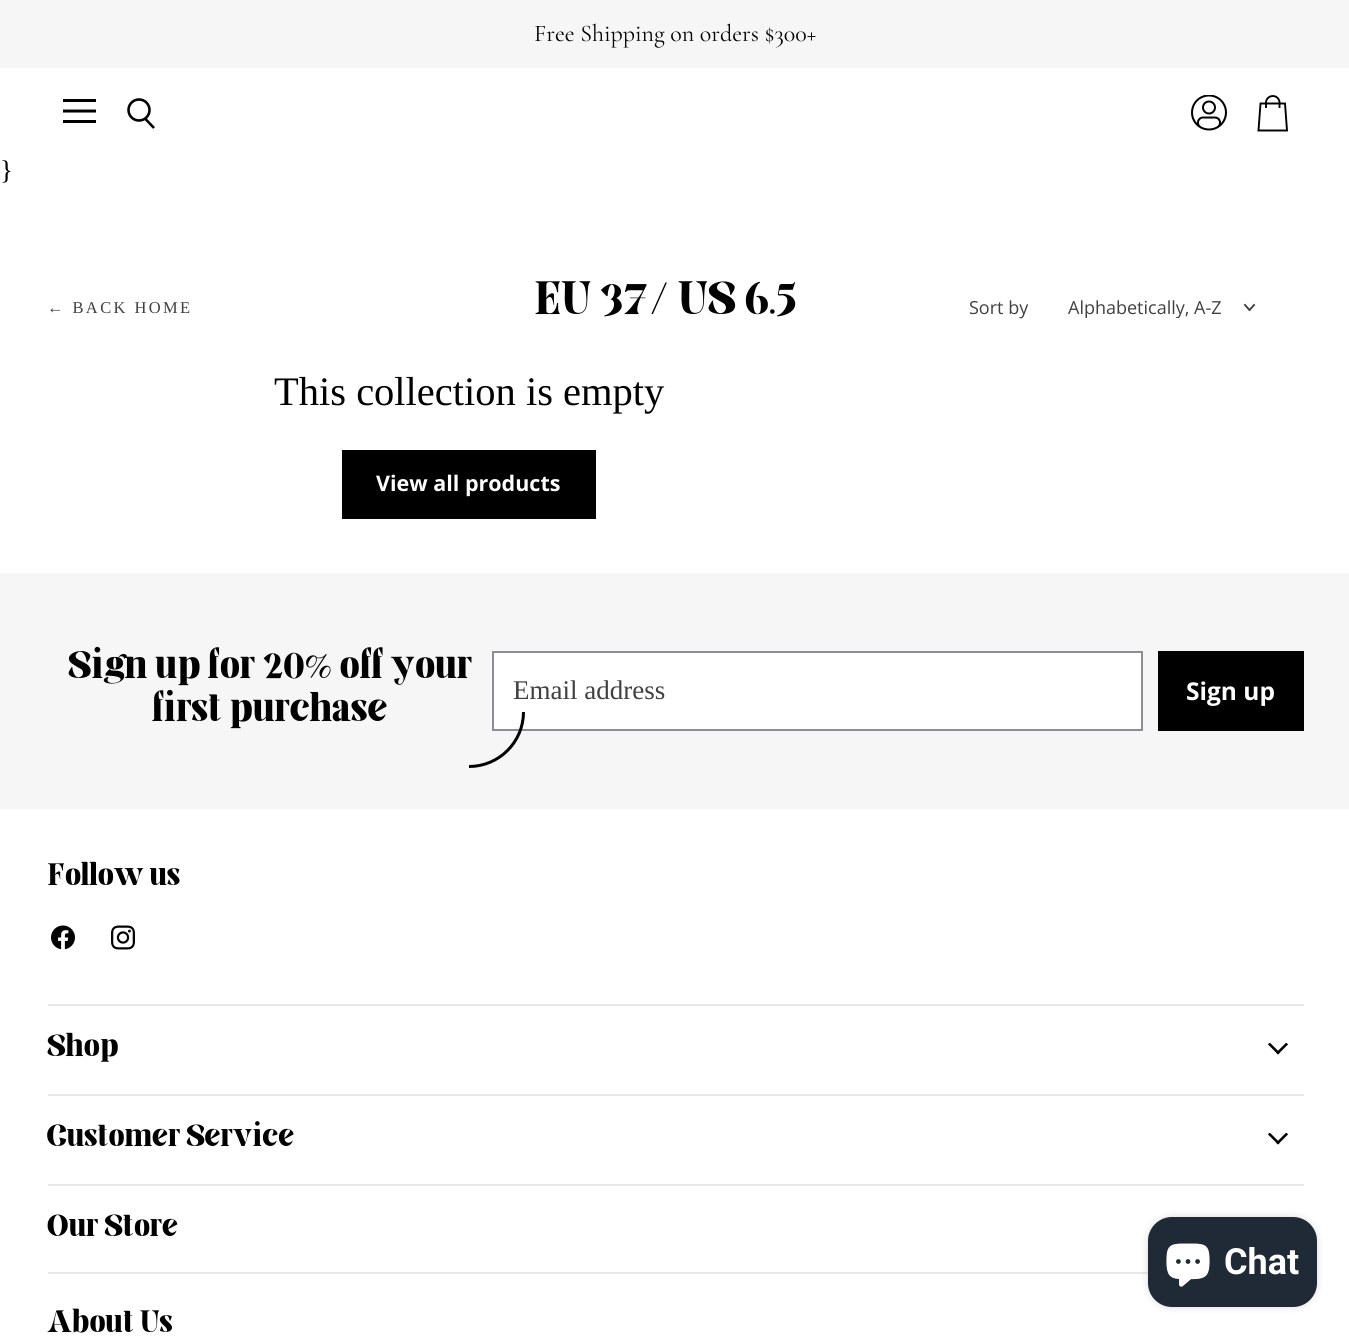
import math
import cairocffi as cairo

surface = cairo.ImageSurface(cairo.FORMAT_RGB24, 1349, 1338)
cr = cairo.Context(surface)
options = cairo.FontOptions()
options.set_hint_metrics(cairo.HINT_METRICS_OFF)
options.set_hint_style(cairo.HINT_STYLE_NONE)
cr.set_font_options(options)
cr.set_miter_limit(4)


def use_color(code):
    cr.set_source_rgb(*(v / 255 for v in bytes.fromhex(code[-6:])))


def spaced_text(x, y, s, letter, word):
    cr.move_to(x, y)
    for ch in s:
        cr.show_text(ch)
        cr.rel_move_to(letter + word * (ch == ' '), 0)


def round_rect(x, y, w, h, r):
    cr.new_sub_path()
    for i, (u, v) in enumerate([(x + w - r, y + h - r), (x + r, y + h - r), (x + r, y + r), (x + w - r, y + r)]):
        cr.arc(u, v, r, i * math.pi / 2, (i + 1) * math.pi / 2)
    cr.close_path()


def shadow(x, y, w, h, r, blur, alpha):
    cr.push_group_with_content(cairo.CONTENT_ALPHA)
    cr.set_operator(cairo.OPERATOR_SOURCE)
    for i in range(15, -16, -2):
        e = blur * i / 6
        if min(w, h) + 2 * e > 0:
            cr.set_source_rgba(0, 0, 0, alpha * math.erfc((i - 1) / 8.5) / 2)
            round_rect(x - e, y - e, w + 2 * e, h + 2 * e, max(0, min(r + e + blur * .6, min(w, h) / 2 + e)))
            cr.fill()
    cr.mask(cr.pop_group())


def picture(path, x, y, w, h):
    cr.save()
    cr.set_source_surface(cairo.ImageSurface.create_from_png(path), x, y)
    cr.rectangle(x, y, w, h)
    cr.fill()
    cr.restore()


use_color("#ffffff")
cr.paint()
use_color("#f6f6f6")
cr.rectangle(0, 0, 1349, 68)
cr.fill()
cr.select_font_face("Cormorant Garamond")
cr.set_font_size(24)
use_color("#000000")
cr.move_to(534, 41)
cr.show_text("Free Shipping on orders $300+")
cr.rectangle(63, 99, 33, 3)
cr.fill()
cr.new_path()
cr.move_to(94.5, 111)
cr.line_to(64.5, 111)
cr.set_line_width(3)
cr.set_line_cap(cairo.LINE_CAP_SQUARE)
cr.set_line_join(cairo.LINE_JOIN_ROUND)
cr.stroke()
cr.rectangle(63, 120, 33, 3)
cr.fill()
cr.new_path()
cr.move_to(154, 128)
cr.line_to(145, 118.5)
cr.set_line_width(2.6)
cr.set_line_cap(cairo.LINE_CAP_BUTT)
cr.set_line_join(cairo.LINE_JOIN_MITER)
cr.stroke()
cr.arc(139, 110, 10.5, 0, 2 * math.pi)
cr.stroke()
picture("img1.png", 1191, 95, 36, 36)
cr.new_path()
cr.move_to(1287, 130.5)
cr.line_to(1258.5, 130.5)
cr.line_to(1260.5, 103.5)
cr.line_to(1285, 103.5)
cr.close_path()
cr.move_to(1279.5, 108)
cr.line_to(1279.5, 102.5)
cr.curve_to(1279.5, 99, 1276.5, 96, 1273, 96)
cr.curve_to(1269, 96, 1266, 99, 1266, 102.5)
cr.line_to(1266, 108)
cr.set_line_width(1.9)
cr.stroke()
cr.select_font_face("Liberation Serif")
cr.set_font_size(27)
cr.move_to(0, 179)
cr.show_text("}")
cr.set_font_size(16.5)
use_color("#404040")
spaced_text(47, 313, "← BACK HOME", 2.4, 0)
cr.select_font_face("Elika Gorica")
cr.set_font_size(45)
use_color("#000000")
cr.move_to(535, 314)
cr.show_text("EU 37/ US 6.5")
cr.select_font_face("Open Sans")
cr.set_font_size(18)
use_color("#404040")
cr.move_to(969, 314)
cr.show_text("Sort by")
cr.save()
cr.rectangle(1068, 297, 155, 21)
cr.clip()
cr.move_to(1068, 314)
cr.show_text("Alphabetically, A-Z")
cr.restore()
cr.new_path()
cr.move_to(1249.5, 310)
cr.line_to(1254, 305)
cr.move_to(1249.5, 310)
cr.line_to(1245, 305)
cr.set_line_cap(cairo.LINE_CAP_SQUARE)
cr.stroke()
cr.select_font_face("Liberation Serif")
cr.set_font_size(40.5)
use_color("#000000")
cr.move_to(274, 405)
cr.show_text("This collection is empty")
cr.rectangle(342, 450, 254, 69)
cr.fill()
cr.select_font_face("Open Sans", cairo.FONT_SLANT_NORMAL, cairo.FONT_WEIGHT_BOLD)
cr.set_font_size(21.5)
use_color("#ffffff")
cr.move_to(376, 491)
cr.show_text("View all products")
use_color("#f6f6f6")
cr.rectangle(0, 573, 1349, 236)
cr.fill()
use_color("#ffffff")
cr.rectangle(493, 652, 649, 78)
cr.fill_preserve()
use_color("#8d8e93")
cr.set_line_width(2)
cr.set_line_cap(cairo.LINE_CAP_BUTT)
cr.stroke()
cr.new_path()
cr.move_to(523.5, 712)
cr.curve_to(523.5, 742, 499, 766.5, 469, 766.5)
use_color("#000000")
cr.set_line_width(3)
cr.stroke()
cr.select_font_face("Elika Gorica")
cr.set_font_size(37.25)
cr.move_to(68, 678)
cr.show_text("Sign up for 20% off your")
cr.move_to(152, 721)
cr.show_text("first purchase")
cr.select_font_face("Liberation Serif")
cr.set_font_size(27)
use_color("#404040")
cr.move_to(513, 699)
cr.show_text("Email address")
use_color("#000000")
cr.rectangle(1158, 651, 146, 80)
cr.fill()
cr.select_font_face("Open Sans", cairo.FONT_SLANT_NORMAL, cairo.FONT_WEIGHT_BOLD)
cr.set_font_size(24.5)
use_color("#ffffff")
cr.move_to(1186, 700)
cr.show_text("Sign up")
use_color("#e8e8e9")
cr.rectangle(48, 1004, 1256, 2)
cr.fill()
cr.select_font_face("Elika Gorica")
cr.set_font_size(29.75)
use_color("#000000")
cr.move_to(47, 885)
cr.show_text("Follow us")
picture("img2.png", 51, 925, 24, 25)
picture("img3.png", 111, 925, 24, 25)
use_color("#e8e8e9")
cr.rectangle(48, 1094, 1256, 2)
cr.fill()
use_color("#000000")
cr.move_to(47, 1056)
cr.show_text("Shop")
picture("img4.png", 1268, 1043, 20, 12)
use_color("#e8e8e9")
cr.rectangle(48, 1184, 1256, 2)
cr.fill()
use_color("#000000")
cr.move_to(47, 1146)
cr.show_text("Customer Service")
picture("img4.png", 1268, 1133, 20, 12)
use_color("#e8e8e9")
cr.rectangle(48, 1272, 1100, 2)
cr.fill()
use_color("#000000")
cr.move_to(47, 1236)
cr.show_text("Our Store")
cr.move_to(47, 1332)
cr.show_text("About Us")
use_color("#000000")
shadow(1148, 1217, 169, 90, 24, 4, 0.15)
use_color("#202a36")
round_rect(1148, 1217, 169, 90, 24)
cr.fill()
picture("img5.png", 1166, 1243, 44, 44)
cr.select_font_face("Roboto", cairo.FONT_SLANT_NORMAL, cairo.FONT_WEIGHT_BOLD)
cr.set_font_size(36)
use_color("#ffffff")
cr.move_to(1224, 1274)
cr.show_text("Chat")
surface.write_to_png("result.png")
